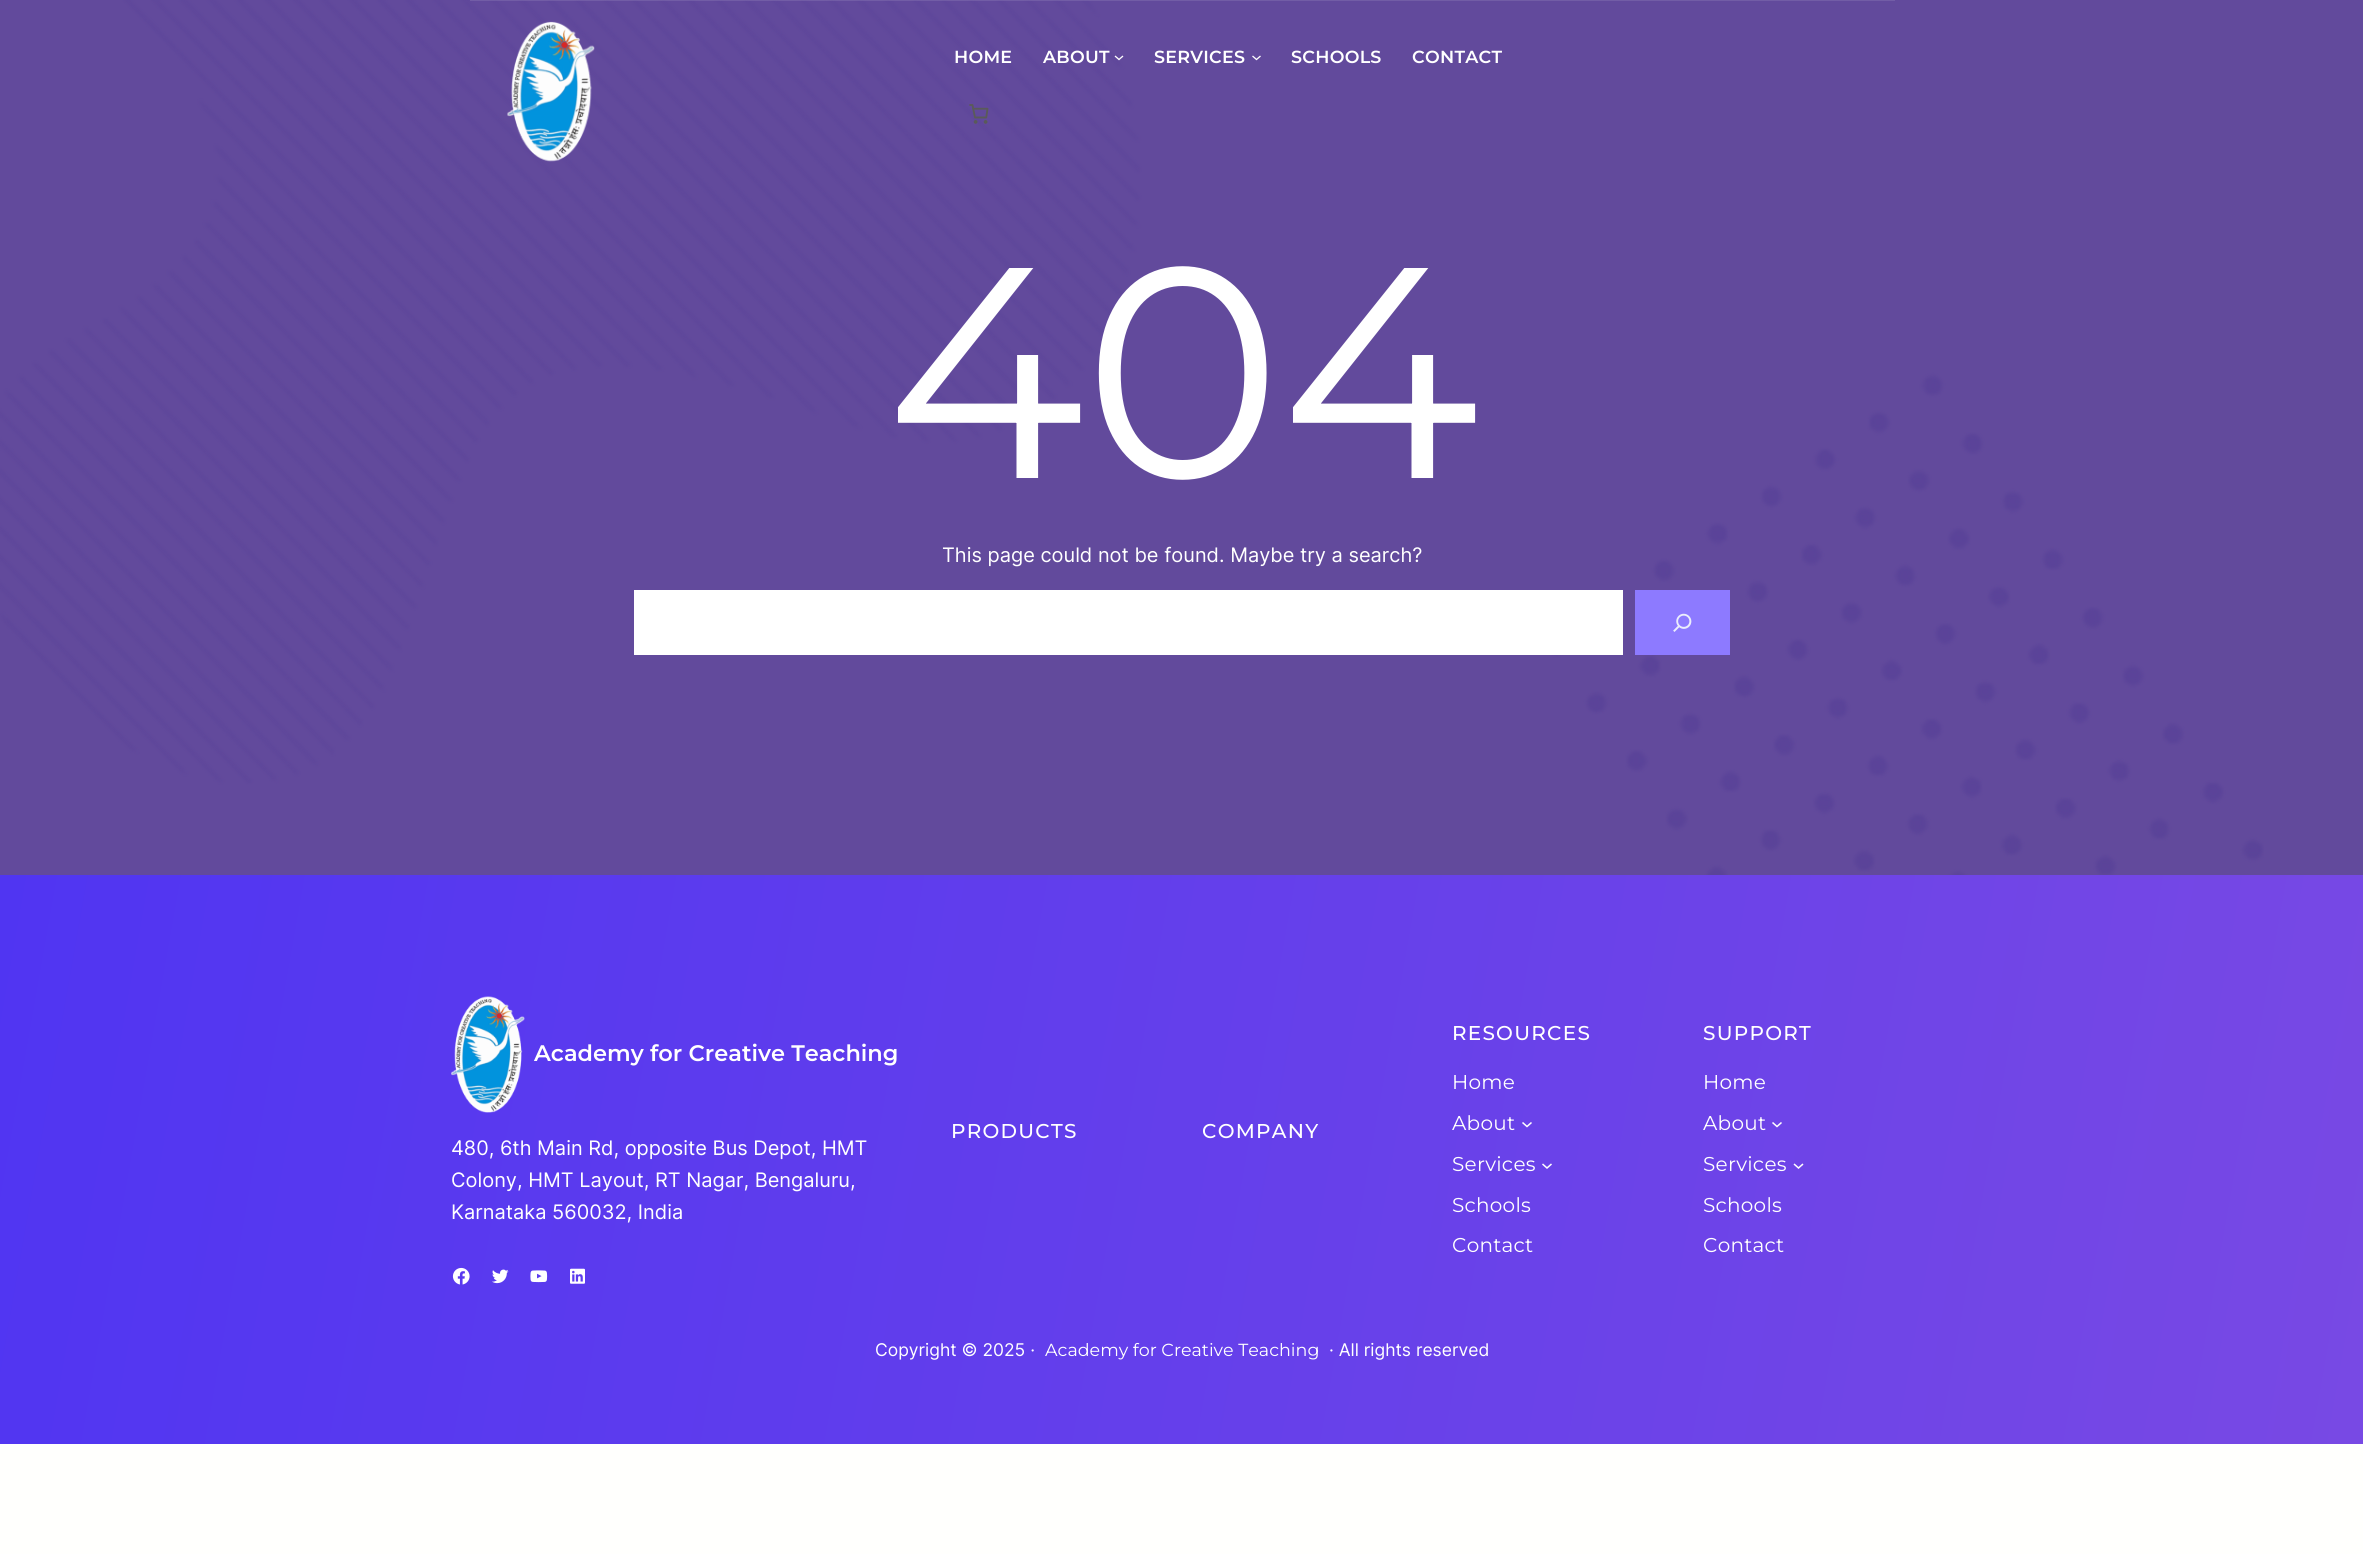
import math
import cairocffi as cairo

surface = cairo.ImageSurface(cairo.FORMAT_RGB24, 2363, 1554)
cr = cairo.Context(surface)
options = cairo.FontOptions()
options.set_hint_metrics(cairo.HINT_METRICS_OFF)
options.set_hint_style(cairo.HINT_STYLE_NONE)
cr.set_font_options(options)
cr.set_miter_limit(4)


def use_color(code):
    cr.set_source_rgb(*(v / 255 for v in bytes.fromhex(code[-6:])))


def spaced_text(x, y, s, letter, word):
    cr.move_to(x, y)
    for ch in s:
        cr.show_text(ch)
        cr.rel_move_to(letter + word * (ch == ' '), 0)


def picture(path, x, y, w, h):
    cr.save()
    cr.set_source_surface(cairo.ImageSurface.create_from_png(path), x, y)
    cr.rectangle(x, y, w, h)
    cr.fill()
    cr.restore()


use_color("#fffffd")
cr.paint()
use_color("#624a9c")
cr.rectangle(0, 0, 2363, 875)
cr.fill()
picture("img3.png", 0, 0, 2264, 875)
cr.set_source_rgba(0.929, 0.929, 0.929, 0.12)
cr.rectangle(470, 0, 1425, 1)
cr.fill()
picture("img1.png", 507, 21, 88, 141)
cr.select_font_face("Montserrat SemiBold")
cr.set_font_size(17.5)
use_color("#ffffff")
spaced_text(954, 63, "HOME", 0.25, 0)
spaced_text(1043, 63, "ABOUT", 0.25, 0)
cr.new_path()
cr.move_to(1115, 56)
cr.line_to(1119, 59.5)
cr.line_to(1123, 56)
use_color("#fffffe")
cr.set_line_width(1.3)
cr.stroke()
use_color("#ffffff")
spaced_text(1154, 63, "SERVICES", 0.25, 0)
cr.new_path()
cr.move_to(1252.5, 56)
cr.line_to(1256.5, 59.5)
cr.line_to(1260.5, 56)
use_color("#fffffe")
cr.stroke()
use_color("#ffffff")
spaced_text(1291, 63, "SCHOOLS", 0.25, 0)
spaced_text(1412, 63, "CONTACT", 0.25, 0)
picture("img2.png", 969, 104, 20, 20)
cr.select_font_face("Montserrat")
cr.set_font_size(300)
spaced_text(886, 478, "404", -1, 0)
cr.select_font_face("Inter")
cr.set_font_size(20)
cr.move_to(942, 562)
cr.show_text("This page could not be found. Maybe try a search?")
cr.rectangle(634, 590, 989, 65)
cr.fill()
use_color("#8d7aff")
cr.rectangle(1635, 590, 95, 65)
cr.fill()
picture("img4.png", 1673, 613, 19, 19)
gradient = cairo.LinearGradient(-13, 949, 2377, 1370)
gradient.add_color_stop_rgba(0, 0.314, 0.208, 0.949, 1)
gradient.add_color_stop_rgba(1, 0.471, 0.286, 0.894, 1)
cr.set_source(gradient)
cr.rectangle(0, 875, 2363, 569)
cr.fill()
picture("img5.png", 451, 996, 74, 117)
cr.select_font_face("Montserrat SemiBold")
cr.set_font_size(22.5)
use_color("#ffffff")
cr.move_to(534, 1061)
cr.show_text("Academy for Creative Teaching")
cr.select_font_face("Inter")
cr.set_font_size(20)
cr.move_to(451, 1155)
cr.show_text("480, 6th Main Rd, opposite Bus Depot, HMT")
cr.move_to(451, 1187)
cr.show_text("Colony, HMT Layout, RT Nagar, Bengaluru,")
cr.move_to(451, 1219)
cr.show_text("Karnataka 560032, India")
picture("img6.png", 452, 1267, 18, 18)
picture("img7.png", 492, 1269, 17, 15)
picture("img8.png", 530, 1270, 18, 13)
picture("img9.png", 570, 1268, 15, 16)
cr.select_font_face("Montserrat Medium")
spaced_text(951, 1138, "PRODUCTS", 1.25, 0)
spaced_text(1202, 1138, "COMPANY", 1.25, 0)
spaced_text(1452, 1040, "RESOURCES", 1.25, 0)
cr.select_font_face("Montserrat")
spaced_text(1452, 1089, "Home", 0.25, 0)
spaced_text(1452, 1130, "About", 0.25, 0)
cr.new_path()
cr.move_to(1522.5, 1122.5)
cr.line_to(1527, 1126.5)
cr.line_to(1531.5, 1122.5)
use_color("#fffffe")
cr.set_line_width(1.5)
cr.stroke()
use_color("#ffffff")
spaced_text(1452, 1171, "Services", 0.25, 0)
cr.new_path()
cr.move_to(1542.5, 1164)
cr.line_to(1547, 1168)
cr.line_to(1551.5, 1164)
use_color("#fffffe")
cr.stroke()
use_color("#ffffff")
spaced_text(1452, 1212, "Schools", 0.25, 0)
spaced_text(1452, 1252, "Contact", 0.25, 0)
cr.select_font_face("Montserrat Medium")
spaced_text(1703, 1040, "SUPPORT", 1.25, 0)
cr.select_font_face("Montserrat")
spaced_text(1703, 1089, "Home", 0.25, 0)
spaced_text(1703, 1130, "About", 0.25, 0)
cr.new_path()
cr.move_to(1772.5, 1122.5)
cr.line_to(1777, 1126.5)
cr.line_to(1781.5, 1122.5)
use_color("#fffffe")
cr.stroke()
use_color("#ffffff")
spaced_text(1703, 1171, "Services", 0.25, 0)
cr.new_path()
cr.move_to(1794, 1164)
cr.line_to(1798.5, 1168)
cr.line_to(1803, 1164)
use_color("#fffffe")
cr.stroke()
use_color("#ffffff")
spaced_text(1703, 1212, "Schools", 0.25, 0)
spaced_text(1703, 1252, "Contact", 0.25, 0)
cr.select_font_face("Inter")
cr.set_font_size(17.5)
cr.move_to(875, 1356)
cr.show_text("Copyright © 2025 ·")
cr.select_font_face("Montserrat")
cr.move_to(1045, 1356)
cr.show_text("Academy for Creative Teaching")
cr.select_font_face("Inter")
cr.move_to(1329, 1356)
cr.show_text("· All rights reserved")
surface.write_to_png("result.png")
